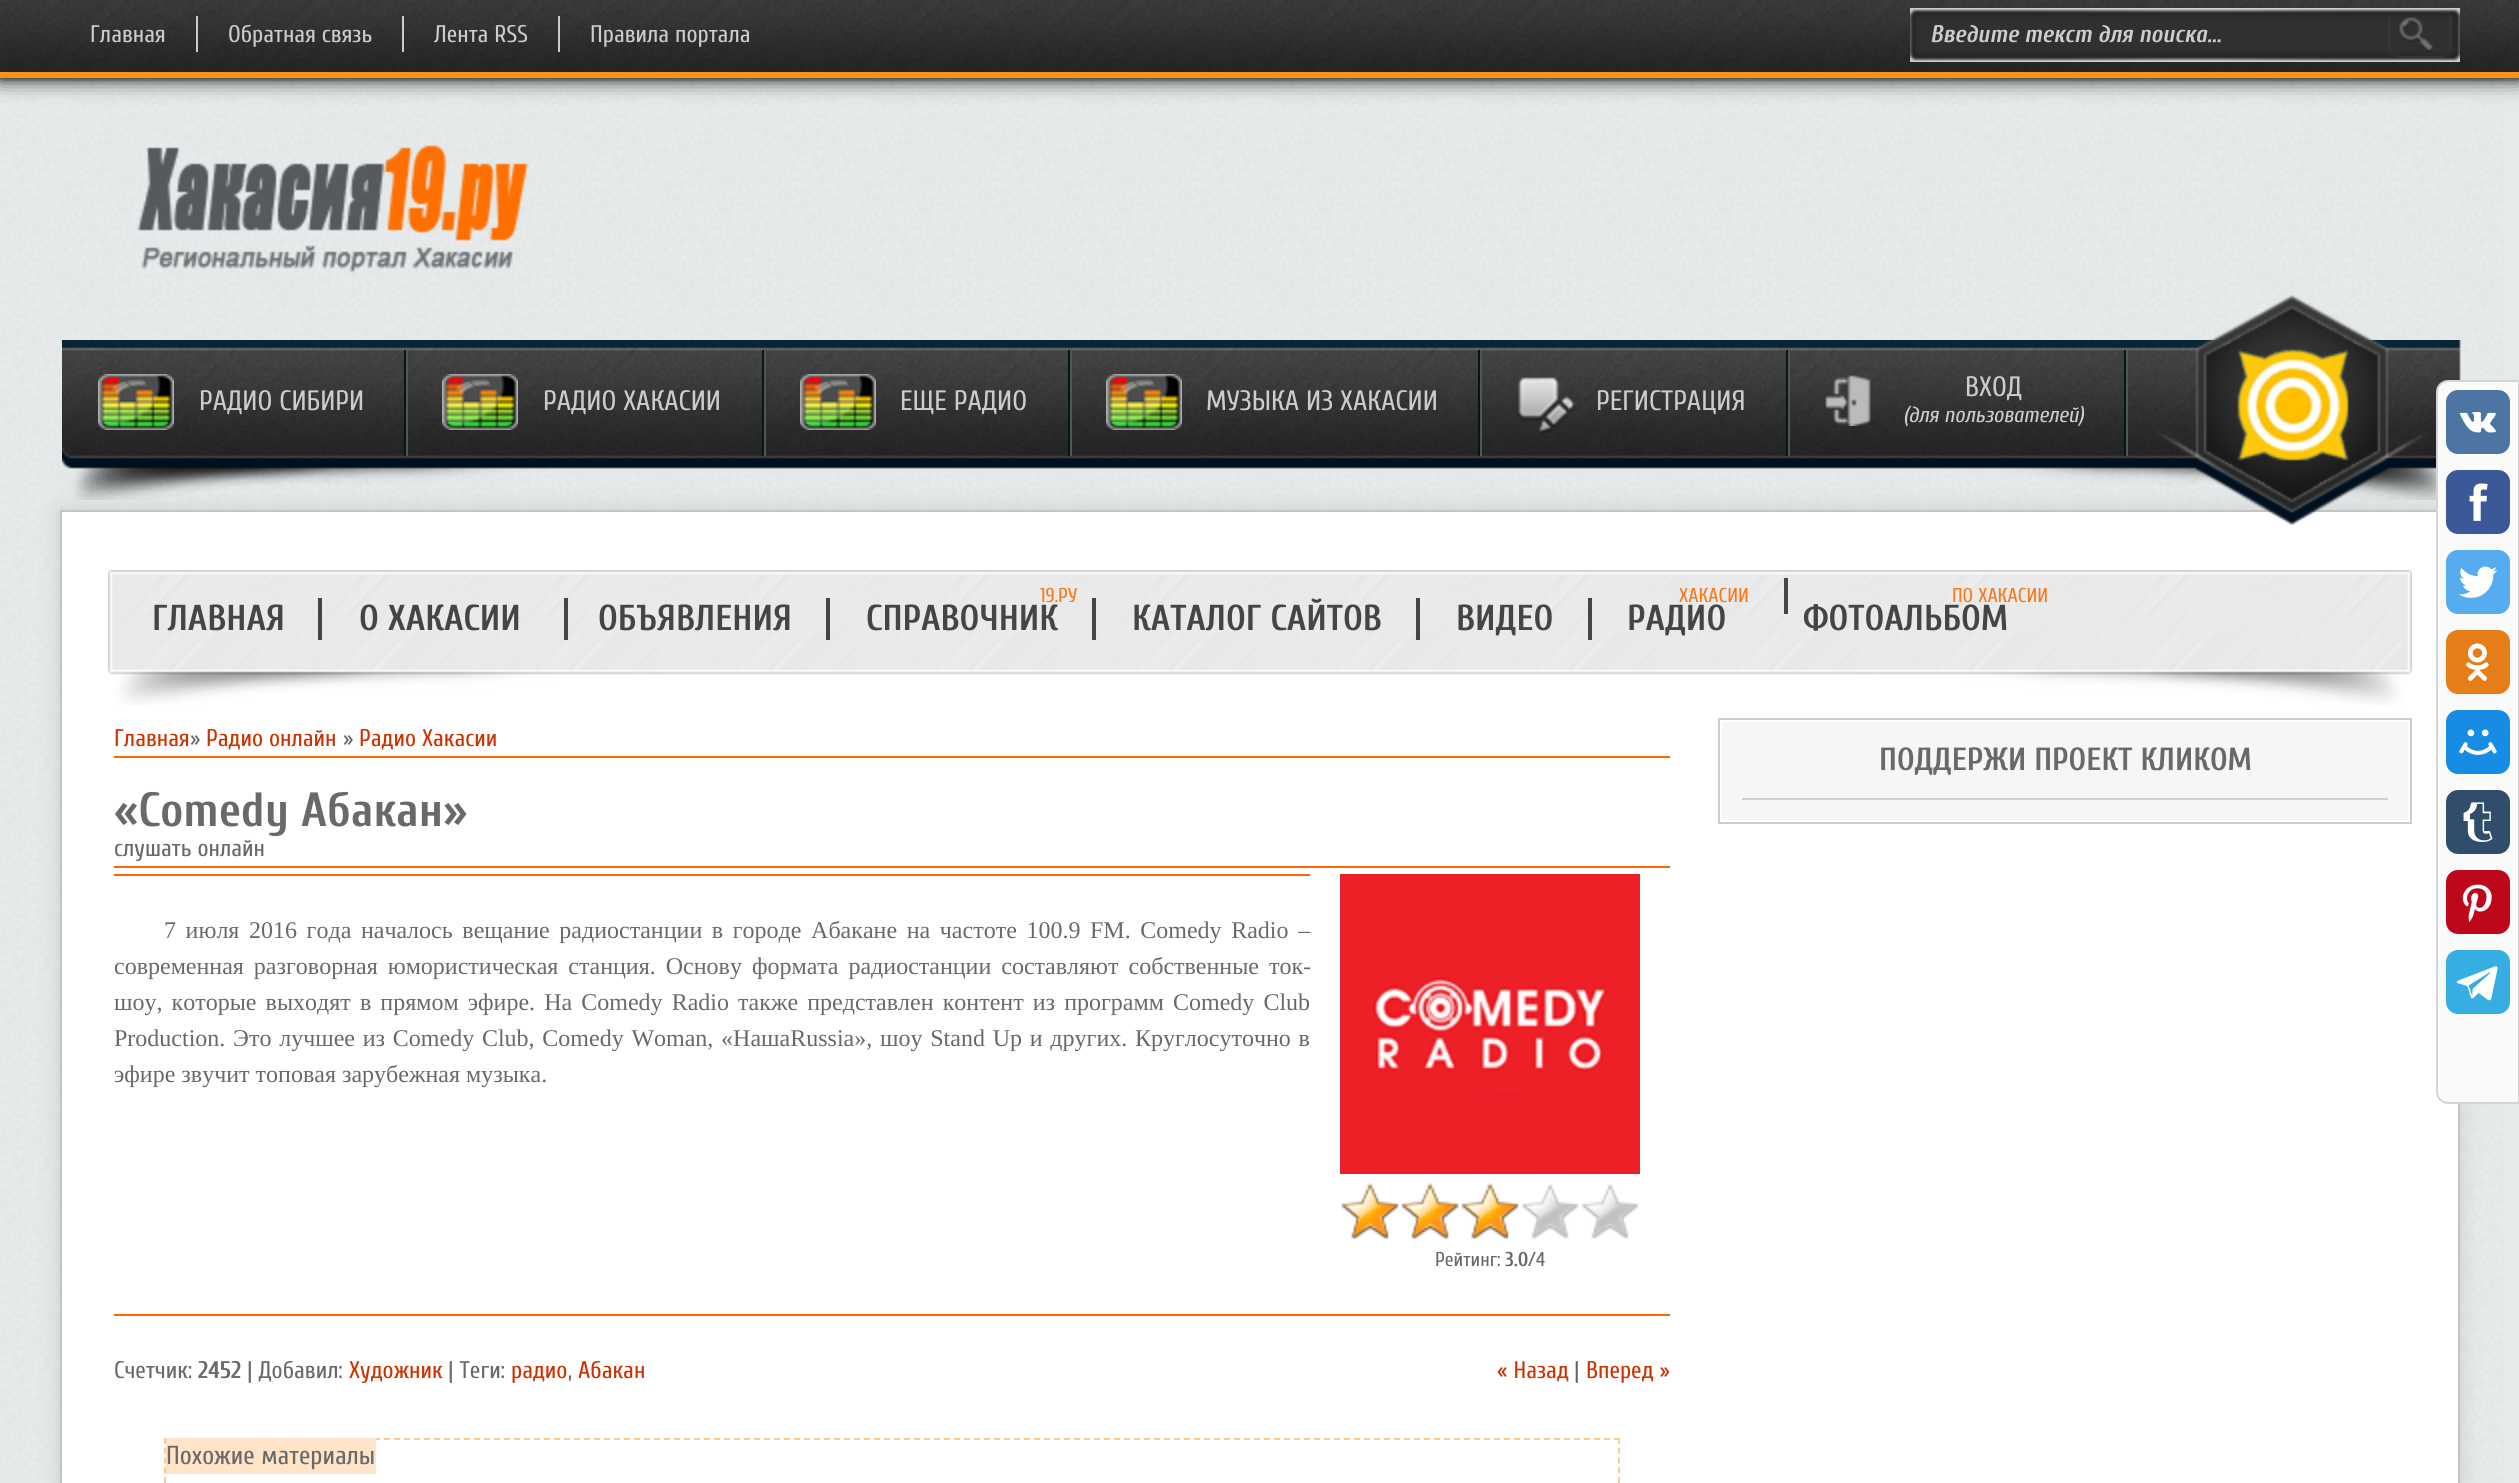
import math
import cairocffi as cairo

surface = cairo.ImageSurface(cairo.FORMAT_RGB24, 2519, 1483)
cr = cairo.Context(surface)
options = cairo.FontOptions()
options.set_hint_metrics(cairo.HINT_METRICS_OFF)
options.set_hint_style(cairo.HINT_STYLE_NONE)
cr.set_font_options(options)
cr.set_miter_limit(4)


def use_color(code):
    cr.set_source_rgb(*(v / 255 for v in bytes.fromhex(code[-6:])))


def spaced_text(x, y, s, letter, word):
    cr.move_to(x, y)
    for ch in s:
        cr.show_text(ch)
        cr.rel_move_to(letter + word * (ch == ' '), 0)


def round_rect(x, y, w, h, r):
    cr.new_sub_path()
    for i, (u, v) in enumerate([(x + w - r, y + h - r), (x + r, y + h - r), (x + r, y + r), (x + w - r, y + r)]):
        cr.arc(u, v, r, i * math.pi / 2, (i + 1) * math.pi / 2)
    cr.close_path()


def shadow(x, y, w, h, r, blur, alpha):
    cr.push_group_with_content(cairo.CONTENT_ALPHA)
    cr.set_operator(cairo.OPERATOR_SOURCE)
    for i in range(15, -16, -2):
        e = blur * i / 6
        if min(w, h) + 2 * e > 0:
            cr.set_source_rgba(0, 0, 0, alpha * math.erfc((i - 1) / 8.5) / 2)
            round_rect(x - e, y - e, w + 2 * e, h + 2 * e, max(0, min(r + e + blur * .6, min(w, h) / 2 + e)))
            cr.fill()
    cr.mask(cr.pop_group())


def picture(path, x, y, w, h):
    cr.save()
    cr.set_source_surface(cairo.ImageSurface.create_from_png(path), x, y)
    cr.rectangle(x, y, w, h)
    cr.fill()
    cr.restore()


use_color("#e6eaea")
cr.paint()
picture("img1.png", 0, 78, 2504, 1404)
use_color("#252525")
shadow(0, 6, 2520, 74, 0, 10, 1)
picture("img2.png", 0, 0, 2519, 72)
shadow(0, 72, 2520, 6, 0, 3, 1)
use_color("#ff9119")
cr.rectangle(0, 72, 2519, 6)
cr.fill()
use_color("#cccccc")
cr.rectangle(196, 16, 2, 36)
cr.fill()
cr.select_font_face("Cuprum")
cr.set_font_size(24)
cr.move_to(90, 42)
cr.show_text("Главная")
cr.rectangle(402, 16, 2, 36)
cr.fill()
cr.move_to(228, 42)
cr.show_text("Обратная связь")
cr.rectangle(558, 16, 2, 36)
cr.fill()
cr.move_to(434, 42)
cr.show_text("Лента RSS")
cr.move_to(590, 42)
cr.show_text("Правила портала")
cr.rectangle(1910, 8, 550, 54)
cr.fill()
picture("img3.png", 1910, 8, 550, 54)
cr.select_font_face("Cuprum", cairo.FONT_SLANT_ITALIC, cairo.FONT_WEIGHT_BOLD)
cr.move_to(1930, 42)
cr.show_text("Введите текст для поиска...")
cr.save()
cr.set_fill_rule(cairo.FILL_RULE_EVEN_ODD)
cr.new_path()
cr.move_to(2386, 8)
cr.line_to(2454, 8)
cr.line_to(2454, 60)
cr.line_to(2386, 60)
cr.close_path()
cr.move_to(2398, 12)
cr.line_to(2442, 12)
cr.curve_to(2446.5, 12, 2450, 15.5, 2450, 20)
cr.line_to(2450, 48)
cr.curve_to(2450, 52.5, 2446.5, 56, 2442, 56)
cr.line_to(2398, 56)
cr.curve_to(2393.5, 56, 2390, 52.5, 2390, 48)
cr.line_to(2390, 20)
cr.curve_to(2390, 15.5, 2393.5, 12, 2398, 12)
cr.close_path()
cr.clip()
use_color("#4f4f4f")
shadow(2390, 12, 60, 44, 8, 1, 1)
cr.restore()
picture("img4.png", 2399, 17, 34, 36)
picture("img5.png", 137, 145, 392, 128)
use_color("#cccccc")
shadow(60, 510, 2400, 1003, 0, 10, 1)
picture("img6.png", 62, 340, 2399, 160)
use_color("#555555")
cr.rectangle(406, 350, 2, 106)
cr.fill()
use_color("#05151d")
cr.rectangle(404, 350, 2, 106)
cr.fill()
picture("img7.png", 98, 374, 76, 56)
cr.select_font_face("Cuprum")
cr.set_font_size(28)
use_color("#cccccc")
cr.move_to(199, 410)
cr.show_text("РАДИО СИБИРИ")
use_color("#555555")
cr.rectangle(764, 350, 2, 106)
cr.fill()
use_color("#05151d")
cr.rectangle(762, 350, 2, 106)
cr.fill()
picture("img8.png", 442, 374, 76, 56)
use_color("#cccccc")
cr.move_to(543, 410)
cr.show_text("РАДИО ХАКАСИИ")
use_color("#555555")
cr.rectangle(1070, 350, 2, 106)
cr.fill()
use_color("#05151d")
cr.rectangle(1068, 350, 2, 106)
cr.fill()
picture("img9.png", 800, 374, 76, 56)
use_color("#cccccc")
cr.move_to(900, 410)
cr.show_text("ЕЩЕ РАДИО")
use_color("#555555")
cr.rectangle(1480, 350, 2, 106)
cr.fill()
use_color("#05151d")
cr.rectangle(1478, 350, 2, 106)
cr.fill()
picture("img10.png", 1106, 374, 76, 56)
use_color("#cccccc")
cr.move_to(1206, 410)
cr.show_text("МУЗЫКА ИЗ ХАКАСИИ")
use_color("#555555")
cr.rectangle(1788, 350, 2, 106)
cr.fill()
use_color("#05151d")
cr.rectangle(1786, 350, 2, 106)
cr.fill()
picture("img11.png", 1516, 377, 60, 57)
use_color("#cccccc")
cr.move_to(1596, 410)
cr.show_text("РЕГИСТРАЦИЯ")
use_color("#555555")
cr.rectangle(2126, 350, 2, 106)
cr.fill()
use_color("#05151d")
cr.rectangle(2124, 350, 2, 106)
cr.fill()
picture("img12.png", 1825, 375, 46, 51)
use_color("#cccccc")
cr.move_to(1965, 396)
cr.show_text("ВХОД")
cr.select_font_face("Cuprum", cairo.FONT_SLANT_ITALIC)
cr.set_font_size(22)
cr.move_to(1903, 422)
cr.show_text("(для пользователей)")
use_color("#ffffff")
cr.rectangle(61, 511, 2398, 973)
cr.fill_preserve()
use_color("#c3c5c5")
cr.stroke()
picture("img13.png", 2154, 295, 274, 230)
picture("img14.png", 108, 570, 2304, 135)
cr.select_font_face("Cuprum", cairo.FONT_SLANT_NORMAL, cairo.FONT_WEIGHT_BOLD)
cr.set_font_size(36)
use_color("#454545")
cr.move_to(152, 630)
cr.show_text("ГЛАВНАЯ")
cr.rectangle(318, 598, 4, 42)
cr.fill()
cr.move_to(359, 630)
cr.show_text("О ХАКАСИИ")
cr.rectangle(564, 598, 4, 42)
cr.fill()
cr.move_to(598, 630)
cr.show_text("ОБЪЯВЛЕНИЯ")
cr.rectangle(826, 598, 4, 42)
cr.fill()
cr.select_font_face("Cuprum")
cr.set_font_size(20)
use_color("#f8791a")
cr.move_to(1040, 602)
cr.show_text("19.РУ")
cr.select_font_face("Cuprum", cairo.FONT_SLANT_NORMAL, cairo.FONT_WEIGHT_BOLD)
cr.set_font_size(36)
use_color("#454545")
cr.move_to(866, 630)
cr.show_text("СПРАВОЧНИК")
cr.rectangle(1092, 598, 4, 42)
cr.fill()
cr.move_to(1132, 630)
cr.show_text("КАТАЛОГ САЙТОВ")
cr.rectangle(1416, 598, 4, 42)
cr.fill()
cr.move_to(1456, 630)
cr.show_text("ВИДЕО")
cr.rectangle(1588, 598, 4, 42)
cr.fill()
cr.rectangle(1784, 578, 4, 36)
cr.fill()
cr.select_font_face("Cuprum")
cr.set_font_size(20)
use_color("#f8791a")
cr.move_to(1679, 602)
cr.show_text("ХАКАСИИ")
cr.select_font_face("Cuprum", cairo.FONT_SLANT_NORMAL, cairo.FONT_WEIGHT_BOLD)
cr.set_font_size(36)
use_color("#454545")
cr.move_to(1627, 630)
cr.show_text("РАДИО")
cr.select_font_face("Cuprum")
cr.set_font_size(20)
use_color("#f8791a")
cr.move_to(1952, 602)
cr.show_text("ПО ХАКАСИИ")
cr.select_font_face("Cuprum", cairo.FONT_SLANT_NORMAL, cairo.FONT_WEIGHT_BOLD)
cr.set_font_size(36)
use_color("#454545")
cr.move_to(1803, 630)
cr.show_text("ФОТОАЛЬБОМ")
cr.select_font_face("Cuprum")
cr.set_font_size(24)
use_color("#cc3300")
cr.move_to(114, 746)
cr.show_text("Главная")
use_color("#696969")
cr.move_to(190, 746)
cr.show_text("»")
use_color("#cc3300")
cr.move_to(206, 746)
cr.show_text("Радио онлайн")
use_color("#696969")
cr.move_to(343, 746)
cr.show_text("»")
use_color("#cc3300")
cr.move_to(359, 746)
cr.show_text("Радио Хакасии")
use_color("#ff6600")
cr.rectangle(114, 756, 1556, 2)
cr.fill()
cr.select_font_face("Cuprum", cairo.FONT_SLANT_NORMAL, cairo.FONT_WEIGHT_BOLD)
cr.set_font_size(48)
use_color("#696969")
cr.move_to(114, 826)
cr.show_text("«Comedy Абакан»")
cr.select_font_face("Cuprum")
cr.set_font_size(24)
cr.move_to(114, 856)
cr.show_text("слушать онлайн")
use_color("#ff6600")
cr.rectangle(114, 866, 1556, 2)
cr.fill()
cr.rectangle(114, 874, 1196, 2)
cr.fill()
cr.select_font_face("Liberation Serif")
use_color("#696969")
spaced_text(164, 938, "7 июля 2016 года началось вещание радиостанции в городе Абакане на частоте 100.9 FM. Comedy Radio –", 0, 3.6)
spaced_text(114, 974, "современная разговорная юмористическая станция. Основу формата радиостанции составляют собственные ток-", 0, 4)
spaced_text(114, 1010, "шоу, которые выходят в прямом эфире. На Comedy Radio также представлен контент из программ Comedy Club", 0, 3.1)
spaced_text(114, 1046, "Production. Это лучшее из Comedy Club, Comedy Woman, «НашаRussia», шоу Stand Up и других. Круглосуточно в", 0, 1.75)
cr.move_to(114, 1082)
cr.show_text("эфире звучит топовая зарубежная музыка.")
picture("img15.png", 1340, 874, 300, 300)
picture("img16.png", 1341, 1183, 298, 56)
picture("img17.png", 1341, 1183, 178, 57)
cr.select_font_face("Cuprum")
cr.set_font_size(20)
cr.move_to(1435, 1266)
cr.show_text("Рейтинг:")
cr.select_font_face("Cuprum", cairo.FONT_SLANT_NORMAL, cairo.FONT_WEIGHT_BOLD)
cr.move_to(1505, 1266)
cr.show_text("3.0")
cr.select_font_face("Cuprum")
cr.move_to(1528, 1266)
cr.show_text("/4")
use_color("#ff6600")
cr.rectangle(114, 1314, 1556, 2)
cr.fill()
cr.set_font_size(24)
use_color("#696969")
cr.move_to(114, 1378)
cr.show_text("Счетчик:")
cr.select_font_face("Cuprum", cairo.FONT_SLANT_NORMAL, cairo.FONT_WEIGHT_BOLD)
cr.move_to(198, 1378)
cr.show_text("2452")
cr.select_font_face("Cuprum")
cr.move_to(247, 1378)
cr.show_text("| Добавил:")
use_color("#cc3300")
cr.move_to(349, 1378)
cr.show_text("Художник")
use_color("#696969")
cr.move_to(448, 1378)
cr.show_text("| Теги:")
use_color("#cc3300")
cr.move_to(511, 1378)
cr.show_text("радио")
use_color("#696969")
cr.move_to(568, 1378)
cr.show_text(",")
use_color("#cc3300")
cr.move_to(578, 1378)
cr.show_text("Абакан")
cr.move_to(1497, 1378)
cr.show_text("« Назад")
use_color("#696969")
cr.move_to(1574, 1378)
cr.show_text("|")
use_color("#cc3300")
cr.move_to(1586, 1378)
cr.show_text("Вперед »")
cr.new_path()
cr.move_to(164, 1439)
cr.line_to(1620, 1439)
use_color("#ffc88c")
cr.set_dash([6, 4])
cr.stroke()
cr.new_path()
cr.move_to(1619, 1438)
cr.line_to(1619, 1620)
cr.set_dash([6, 3.78])
cr.stroke()
cr.new_path()
cr.move_to(165, 1438)
cr.line_to(165, 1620)
cr.stroke()
use_color("#ffe4c7")
cr.rectangle(166, 1438, 210, 36)
cr.fill()
cr.set_font_size(26)
use_color("#696969")
cr.move_to(166, 1464)
cr.show_text("Похожие материалы")
use_color("#f6f6f6")
cr.rectangle(1722, 722, 686, 98)
cr.fill()
use_color("#d0d1d3")
cr.rectangle(1742, 798, 646, 2)
cr.fill()
cr.rectangle(1719, 719, 692, 104)
use_color("#cdcdcd")
cr.set_dash([])
cr.stroke()
cr.select_font_face("Cuprum", cairo.FONT_SLANT_NORMAL, cairo.FONT_WEIGHT_BOLD)
cr.set_font_size(32)
use_color("#696969")
cr.move_to(1879, 770)
cr.show_text("ПОДДЕРЖИ ПРОЕКТ КЛИКОМ")
use_color("#fafafa")
cr.new_path()
cr.move_to(2448, 381)
cr.line_to(2519, 381)
cr.line_to(2519, 1103)
cr.line_to(2448, 1103)
cr.curve_to(2442, 1103, 2437, 1098, 2437, 1092)
cr.line_to(2437, 392)
cr.curve_to(2437, 386, 2442, 381, 2448, 381)
cr.close_path()
cr.fill_preserve()
use_color("#d4d4d4")
cr.stroke()
use_color("#4d75a3")
round_rect(2446, 390, 64, 64, 12)
cr.fill()
picture("img18.png", 2459, 412, 37, 21)
use_color("#3b5998")
round_rect(2446, 470, 64, 64, 12)
cr.fill()
picture("img19.png", 2469, 483, 19, 38)
use_color("#55acee")
round_rect(2446, 550, 64, 64, 12)
cr.fill()
picture("img20.png", 2459, 566, 39, 32)
use_color("#e67e17")
round_rect(2446, 630, 64, 64, 12)
cr.fill()
picture("img21.png", 2466, 643, 23, 38)
use_color("#168de2")
round_rect(2446, 710, 64, 64, 12)
cr.fill()
picture("img22.png", 2459, 729, 38, 26)
use_color("#304e6c")
round_rect(2446, 790, 64, 64, 12)
cr.fill()
picture("img23.png", 2463, 802, 30, 40)
use_color("#bd081c")
round_rect(2446, 870, 64, 64, 12)
cr.fill()
picture("img24.png", 2462, 884, 30, 38)
use_color("#37aee2")
round_rect(2446, 950, 64, 64, 12)
cr.fill()
picture("img25.png", 2456, 966, 42, 35)
surface.write_to_png("result.png")
